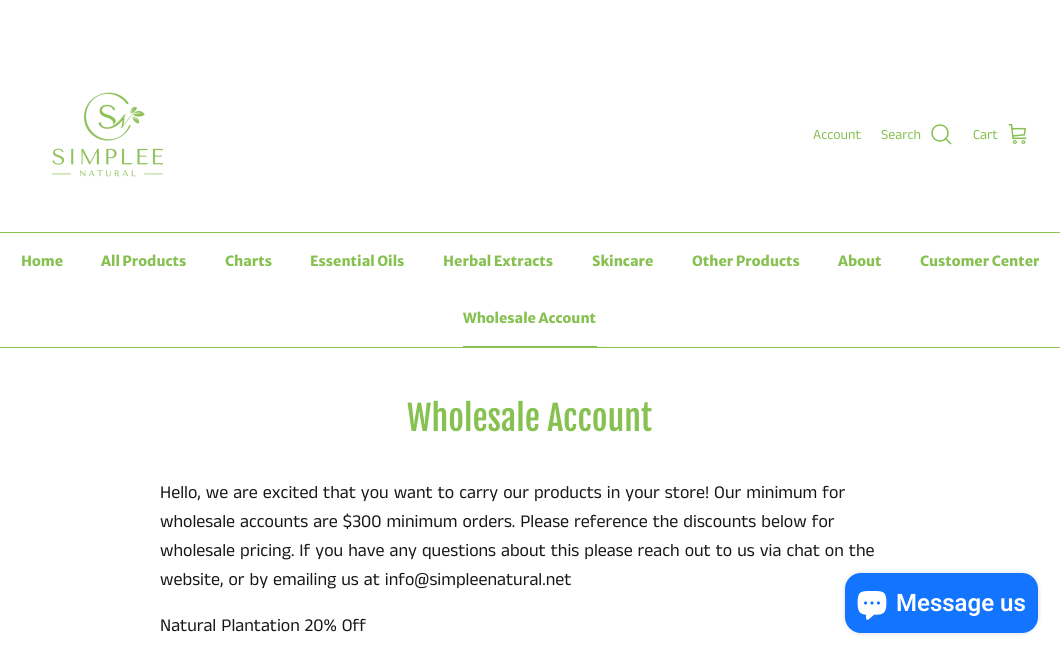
import math
import cairocffi as cairo

surface = cairo.ImageSurface(cairo.FORMAT_RGB24, 1060, 654)
cr = cairo.Context(surface)
options = cairo.FontOptions()
options.set_hint_metrics(cairo.HINT_METRICS_OFF)
options.set_hint_style(cairo.HINT_STYLE_NONE)
cr.set_font_options(options)
cr.set_miter_limit(4)


def use_color(code):
    cr.set_source_rgb(*(v / 255 for v in bytes.fromhex(code[-6:])))


def round_rect(x, y, w, h, r):
    cr.new_sub_path()
    for i, (u, v) in enumerate([(x + w - r, y + h - r), (x + r, y + h - r), (x + r, y + r), (x + w - r, y + r)]):
        cr.arc(u, v, r, i * math.pi / 2, (i + 1) * math.pi / 2)
    cr.close_path()


def shadow(x, y, w, h, r, blur, alpha):
    cr.push_group_with_content(cairo.CONTENT_ALPHA)
    cr.set_operator(cairo.OPERATOR_SOURCE)
    for i in range(15, -16, -2):
        e = blur * i / 6
        if min(w, h) + 2 * e > 0:
            cr.set_source_rgba(0, 0, 0, alpha * math.erfc((i - 1) / 8.5) / 2)
            round_rect(x - e, y - e, w + 2 * e, h + 2 * e, max(0, min(r + e + blur * .6, min(w, h) / 2 + e)))
            cr.fill()
    cr.mask(cr.pop_group())


def picture(path, x, y, w, h):
    cr.save()
    cr.set_source_surface(cairo.ImageSurface.create_from_png(path), x, y)
    cr.rectangle(x, y, w, h)
    cr.fill()
    cr.restore()


use_color("#ffffff")
cr.paint()
use_color("#87c152")
cr.rectangle(0, 232, 1060, 1)
cr.fill()
picture("img1.png", 52, 92, 111, 85)
cr.select_font_face("Anek Tamil")
cr.set_font_size(14)
cr.move_to(813, 139)
cr.show_text("Account")
cr.move_to(881, 139)
cr.show_text("Search")
cr.new_path()
cr.arc(940, 133, 8, 0, 2 * math.pi)
cr.set_line_width(1.5)
cr.stroke()
cr.new_path()
cr.move_to(946, 139)
cr.line_to(950.5, 143.5)
cr.set_line_cap(cairo.LINE_CAP_SQUARE)
cr.stroke()
cr.move_to(973, 139)
cr.show_text("Cart")
picture("img2.png", 1008, 124, 19, 20)
cr.rectangle(0, 347, 1060, 1)
cr.fill()
cr.select_font_face("Merriweather Sans ExtraBold")
cr.move_to(21, 266)
cr.show_text("Home")
cr.move_to(101, 266)
cr.show_text("All Products")
cr.move_to(225, 266)
cr.show_text("Charts")
cr.move_to(310, 266)
cr.show_text("Essential Oils")
cr.move_to(443, 266)
cr.show_text("Herbal Extracts")
cr.move_to(592, 266)
cr.show_text("Skincare")
cr.move_to(692, 266)
cr.show_text("Other Products")
cr.move_to(838, 266)
cr.show_text("About")
cr.move_to(920, 266)
cr.show_text("Customer Center")
cr.move_to(463, 323)
cr.show_text("Wholesale Account")
cr.rectangle(463, 346, 134, 1)
cr.fill()
cr.select_font_face("Fjalla One")
cr.set_font_size(34)
cr.move_to(407, 431)
cr.show_text("Wholesale Account")
cr.select_font_face("Anek Tamil")
cr.set_font_size(18)
use_color("#171717")
cr.move_to(160, 498)
cr.show_text("Hello, we are excited that you want to carry our products in your store! Our minimum for")
cr.move_to(160, 527)
cr.show_text("wholesale accounts are $300 minimum orders. Please reference the discounts below for")
cr.move_to(160, 556)
cr.show_text("wholesale pricing. If you have any questions about this please reach out to us via chat on the")
cr.move_to(160, 585)
cr.show_text("website, or by emailing us at info@simpleenatural.net")
cr.move_to(160, 631)
cr.show_text("Natural Plantation 20% Off")
use_color("#000000")
shadow(845, 573, 193, 60, 16, 2.5, 0.15)
use_color("#1274ff")
round_rect(845, 573, 193, 60, 16)
cr.fill()
picture("img3.png", 857, 591, 30, 29)
cr.select_font_face("Roboto SemiBold")
cr.set_font_size(24)
use_color("#ffffff")
cr.move_to(896, 611)
cr.show_text("Message us")
surface.write_to_png("result.png")
